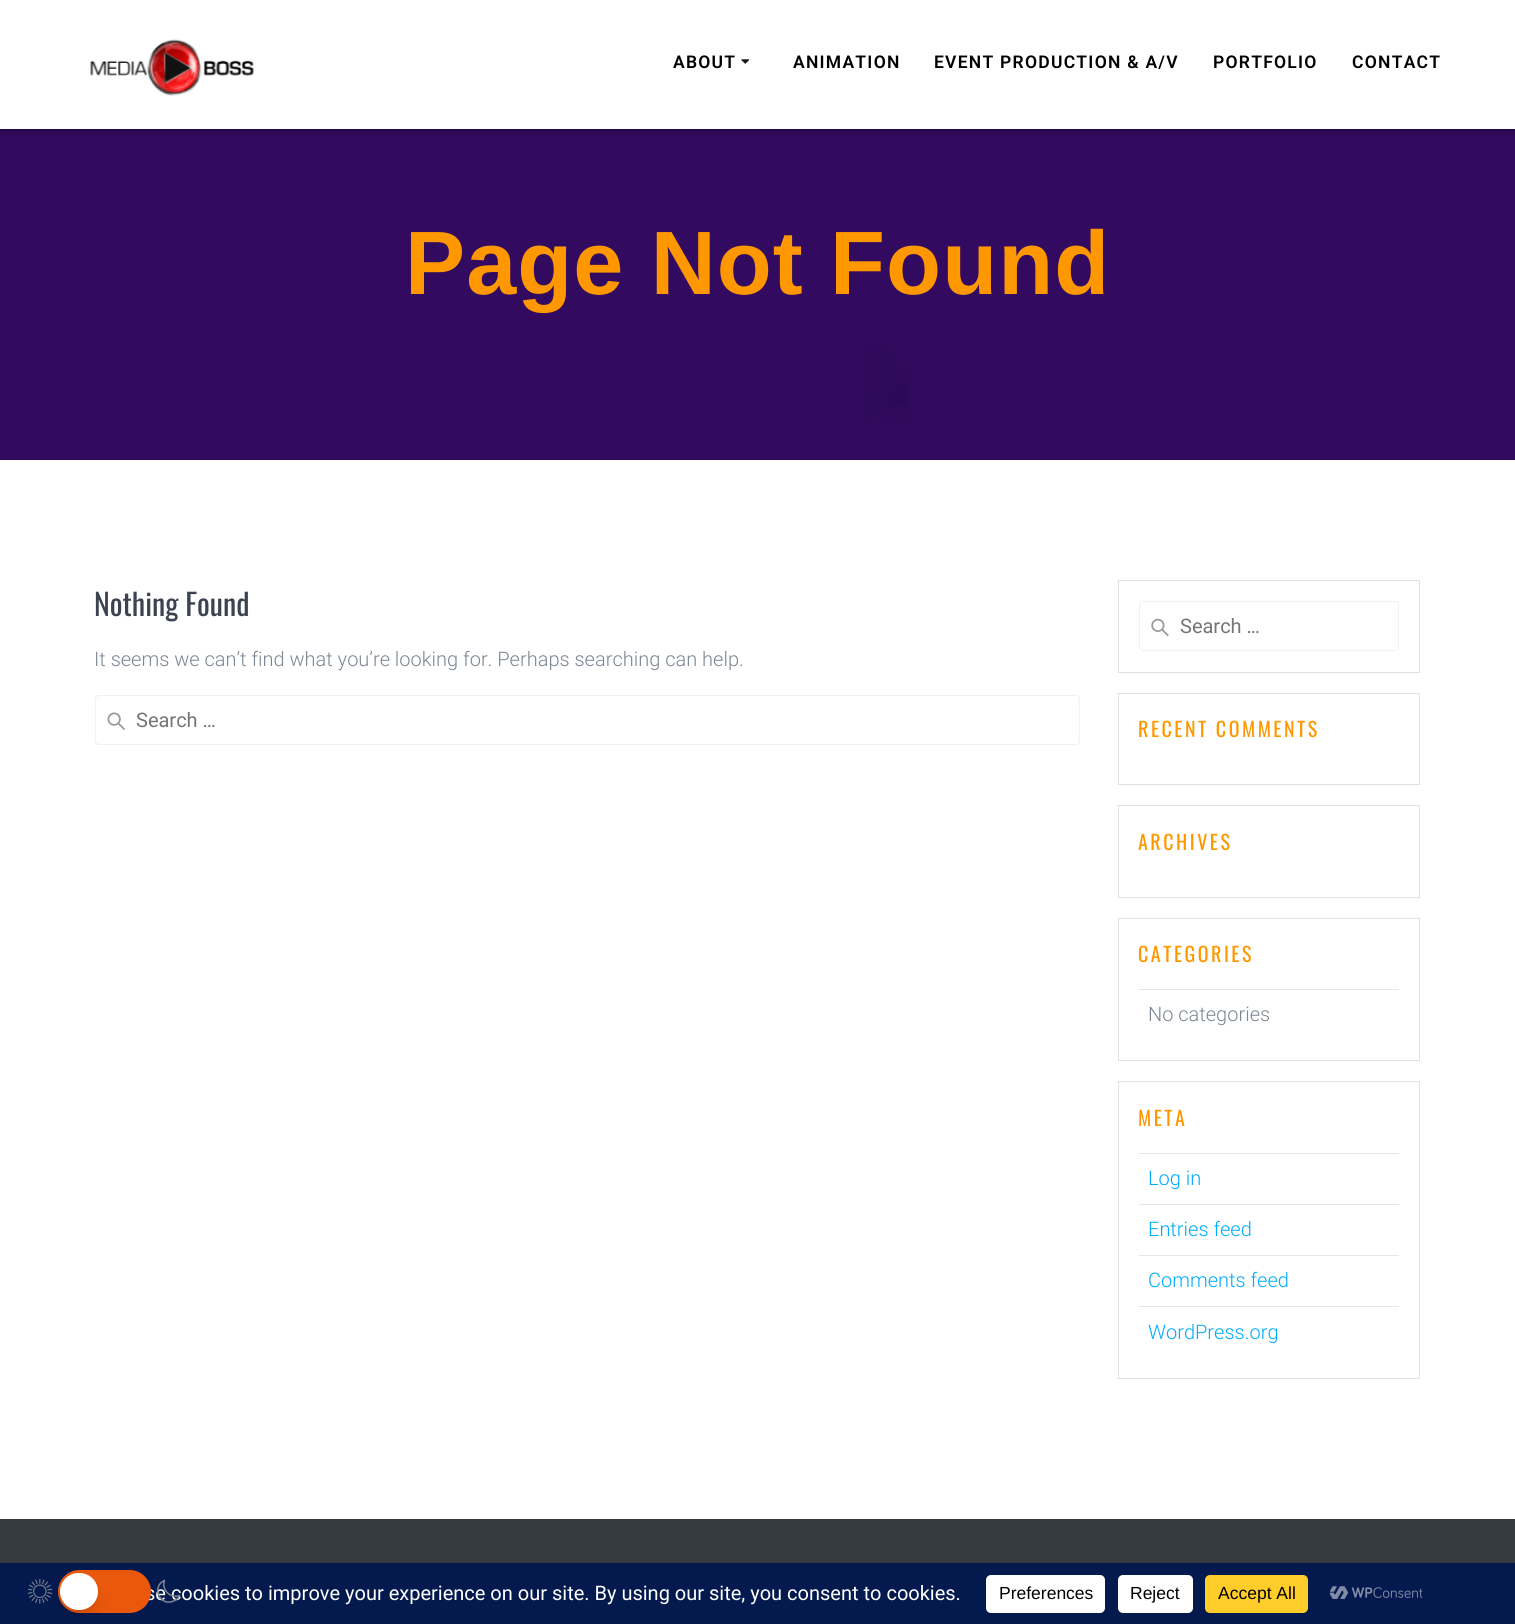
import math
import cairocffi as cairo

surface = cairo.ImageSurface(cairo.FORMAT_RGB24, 1515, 1624)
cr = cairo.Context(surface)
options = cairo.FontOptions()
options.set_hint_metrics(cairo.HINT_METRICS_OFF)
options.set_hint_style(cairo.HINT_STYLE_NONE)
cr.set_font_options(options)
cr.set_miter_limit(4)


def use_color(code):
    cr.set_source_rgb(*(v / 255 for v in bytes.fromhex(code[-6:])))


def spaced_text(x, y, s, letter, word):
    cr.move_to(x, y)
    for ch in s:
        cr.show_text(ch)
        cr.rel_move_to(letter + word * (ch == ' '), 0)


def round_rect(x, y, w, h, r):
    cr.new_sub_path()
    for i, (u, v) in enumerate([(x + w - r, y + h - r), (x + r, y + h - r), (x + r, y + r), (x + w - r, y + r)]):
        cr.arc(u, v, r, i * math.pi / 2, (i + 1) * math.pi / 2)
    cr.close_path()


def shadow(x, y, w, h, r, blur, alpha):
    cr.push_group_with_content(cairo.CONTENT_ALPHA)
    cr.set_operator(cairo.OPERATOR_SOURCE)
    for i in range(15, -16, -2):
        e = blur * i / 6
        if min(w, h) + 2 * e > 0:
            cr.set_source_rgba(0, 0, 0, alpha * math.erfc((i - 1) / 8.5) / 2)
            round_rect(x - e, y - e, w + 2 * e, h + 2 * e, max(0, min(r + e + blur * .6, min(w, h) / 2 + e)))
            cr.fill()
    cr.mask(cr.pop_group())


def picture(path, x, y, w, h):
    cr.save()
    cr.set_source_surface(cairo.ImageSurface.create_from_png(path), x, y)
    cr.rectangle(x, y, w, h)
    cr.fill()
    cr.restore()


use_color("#ffffff")
cr.paint()
use_color("#320a5f")
cr.rectangle(0, 129, 1515, 331)
cr.fill()
use_color("#000000")
shadow(-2, -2, 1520, 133, 0, 3, 0.33)
use_color("#ffffff")
cr.rectangle(0, 0, 1515, 129)
cr.fill()
picture("img1.png", 90, 39, 165, 57)
cr.select_font_face("Roboto SemiBold")
cr.set_font_size(17.5)
use_color("#000000")
spaced_text(673, 68, "ABOUT", 1.25, 0)
picture("img2.png", 741, 59, 9, 5)
spaced_text(793, 68, "ANIMATION", 1.25, 0)
spaced_text(934, 68, "EVENT PRODUCTION & A/V", 1.25, 0)
spaced_text(1213, 68, "PORTFOLIO", 1.25, 0)
spaced_text(1352, 68, "CONTACT", 1.25, 0)
cr.select_font_face("Liberation Sans", cairo.FONT_SLANT_NORMAL, cairo.FONT_WEIGHT_BOLD)
cr.set_font_size(90)
use_color("#ff9800")
spaced_text(405, 294, "Page Not Found", 1.1, 0)
picture("img3.png", 862, 345, 49, 80)
cr.select_font_face("Oswald")
cr.set_font_size(30)
use_color("#3c424f")
cr.move_to(94, 616)
cr.show_text("Nothing Found")
cr.select_font_face("Roboto Light")
cr.set_font_size(20)
use_color("#7d8693")
cr.move_to(94, 666)
cr.show_text("It seems we can’t find what you’re looking for. Perhaps searching can help.")
picture("img4.png", 107, 712, 18, 18)
round_rect(95.5, 695.5, 984, 49, 3.5)
use_color("#f1f1f1")
cr.set_line_width(1)
cr.stroke()
cr.select_font_face("Roboto")
use_color("#757575")
cr.move_to(136, 727)
cr.show_text("Search …")
cr.rectangle(1118.5, 580.5, 301, 92)
use_color("#e0e1e1")
cr.stroke()
picture("img5.png", 1151, 618, 18, 19)
round_rect(1139.5, 601.5, 259, 49, 3.5)
use_color("#f1f1f1")
cr.stroke()
use_color("#757575")
cr.move_to(1180, 633)
cr.show_text("Search …")
cr.rectangle(1118.5, 693.5, 301, 91)
use_color("#e0e1e1")
cr.stroke()
cr.select_font_face("Oswald")
use_color("#ff9800")
spaced_text(1138, 737, "RECENT COMMENTS", 2.5, 0)
cr.rectangle(1118.5, 805.5, 301, 92)
use_color("#e0e1e1")
cr.stroke()
use_color("#ff9800")
spaced_text(1138, 850, "ARCHIVES", 2.5, 0)
cr.rectangle(1118.5, 918.5, 301, 142)
use_color("#e0e1e1")
cr.stroke()
use_color("#ff9800")
spaced_text(1138, 962, "CATEGORIES", 2.5, 0)
use_color("#e6e6e6")
cr.rectangle(1139, 989, 260, 1)
cr.fill()
cr.select_font_face("Roboto Light")
use_color("#7d8693")
cr.move_to(1148, 1021)
cr.show_text("No categories")
cr.rectangle(1118.5, 1081.5, 301, 297)
use_color("#e0e1e1")
cr.stroke()
cr.select_font_face("Oswald")
use_color("#ff9800")
spaced_text(1138, 1126, "META", 2.5, 0)
use_color("#e6e6e6")
cr.rectangle(1139, 1153, 260, 1)
cr.fill()
cr.select_font_face("Roboto Light")
use_color("#00abfb")
cr.move_to(1148, 1185)
cr.show_text("Log in")
use_color("#e6e6e6")
cr.rectangle(1139, 1204, 260, 1)
cr.fill()
use_color("#00abfb")
cr.move_to(1148, 1236)
cr.show_text("Entries feed")
use_color("#e6e6e6")
cr.rectangle(1139, 1255, 260, 1)
cr.fill()
use_color("#00abfb")
cr.move_to(1148, 1287)
cr.show_text("Comments feed")
use_color("#e6e6e6")
cr.rectangle(1139, 1306, 260, 1)
cr.fill()
use_color("#00abfb")
cr.move_to(1148, 1339)
cr.show_text("WordPress.org")
use_color("#343a40")
cr.rectangle(0, 1519, 1515, 44)
cr.fill()
use_color("#04194e")
cr.rectangle(0, 1563, 1515, 61)
cr.fill()
cr.select_font_face("Roboto")
use_color("#ffffff")
cr.move_to(145, 1600)
cr.show_text("se cookies to improve your experience on our site. By using our site, you consent to cookies.")
use_color("#ea580c")
round_rect(58, 1570, 93, 43, 21.5)
cr.fill()
picture("img6.png", 28, 1579, 25, 25)
use_color("#000000")
shadow(65, 1583, 28, 27, 13.5, 4, 0.1)
shadow(64, 1589, 30, 30, 15, 9.5, 0.1)
use_color("#ffffff")
round_rect(60, 1573, 38, 37, 18.5)
cr.fill()
cr.new_path()
cr.move_to(179.5, 1595.5)
cr.curve_to(170.5, 1599, 161, 1589.5, 164.5, 1580.5)
cr.curve_to(151.5, 1586, 159, 1606, 172.5, 1601.5)
cr.curve_to(175.5, 1600.5, 178.5, 1598.5, 179.5, 1595.5)
cr.close_path()
use_color("#7d8693")
cr.set_line_width(1.5)
cr.set_line_cap(cairo.LINE_CAP_ROUND)
cr.set_line_join(cairo.LINE_JOIN_ROUND)
cr.stroke()
use_color("#ffffff")
round_rect(986, 1575, 119, 38, 5)
cr.fill()
cr.select_font_face("Liberation Sans")
cr.set_font_size(17.5)
use_color("#000000")
cr.move_to(999, 1599)
cr.show_text("Preferences")
use_color("#ffffff")
round_rect(1118, 1575, 75, 38, 5)
cr.fill()
use_color("#000000")
cr.move_to(1130, 1599)
cr.show_text("Reject")
use_color("#ffcd2a")
round_rect(1205, 1575, 103, 38, 5)
cr.fill()
use_color("#000000")
cr.move_to(1218, 1599)
cr.show_text("Accept All")
picture("img7.png", 1329, 1586, 94, 13)
surface.write_to_png("result.png")
